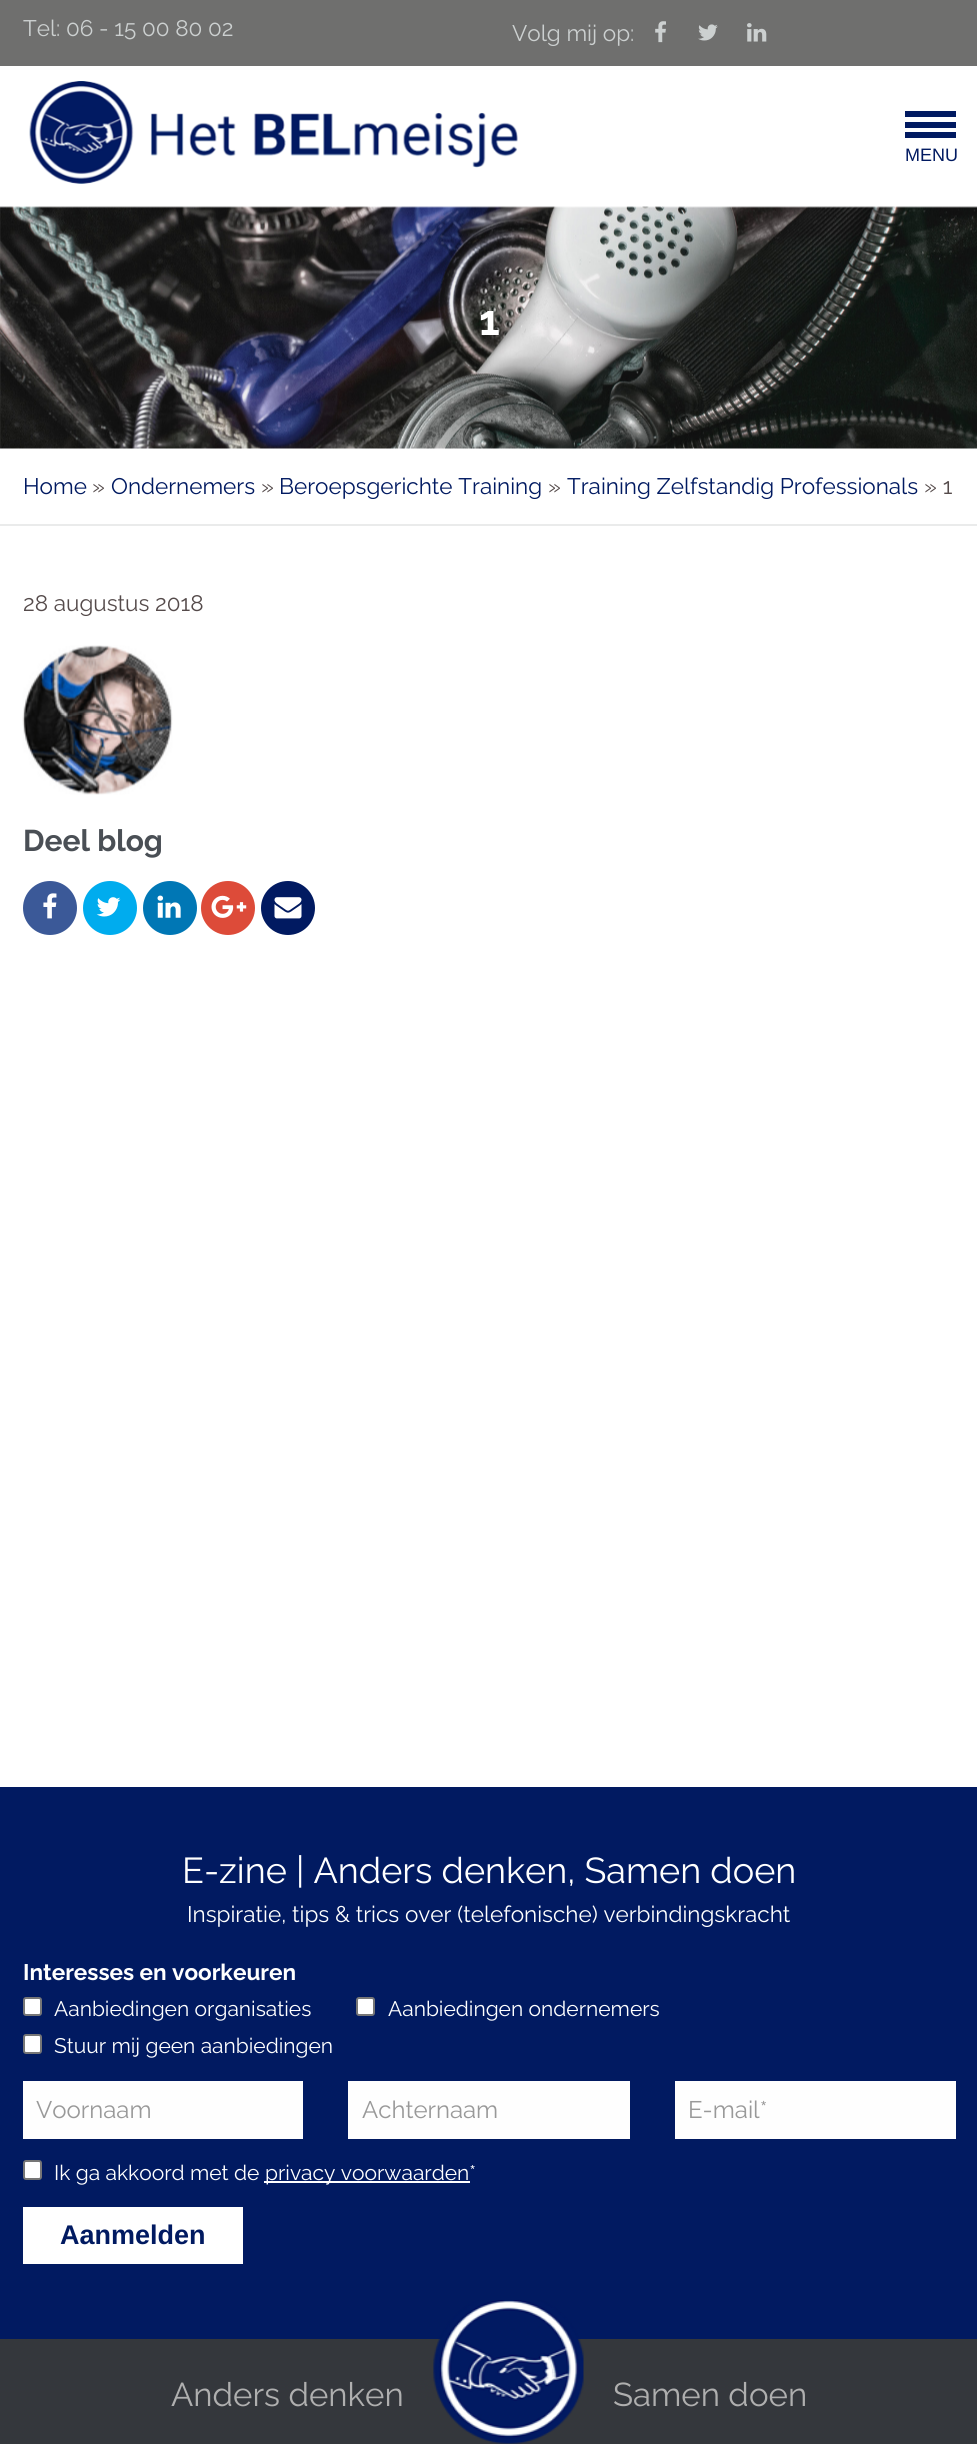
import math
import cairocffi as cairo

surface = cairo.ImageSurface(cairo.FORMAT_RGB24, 977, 2444)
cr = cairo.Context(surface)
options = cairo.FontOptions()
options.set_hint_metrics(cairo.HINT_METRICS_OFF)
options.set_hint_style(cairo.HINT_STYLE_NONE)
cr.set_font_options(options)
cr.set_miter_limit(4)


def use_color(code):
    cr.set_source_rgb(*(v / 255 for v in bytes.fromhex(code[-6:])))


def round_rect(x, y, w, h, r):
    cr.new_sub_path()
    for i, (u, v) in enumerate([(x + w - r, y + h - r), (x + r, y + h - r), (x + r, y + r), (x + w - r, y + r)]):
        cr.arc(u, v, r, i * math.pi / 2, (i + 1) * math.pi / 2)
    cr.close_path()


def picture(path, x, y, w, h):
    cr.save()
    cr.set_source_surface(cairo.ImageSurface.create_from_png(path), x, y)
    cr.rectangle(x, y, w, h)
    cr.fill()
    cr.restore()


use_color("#ffffff")
cr.paint()
use_color("#6f6f6e")
cr.rectangle(0, 0, 977, 66)
cr.fill()
cr.select_font_face("Raleway")
cr.set_font_size(22.5)
use_color("#ccd0d0")
cr.move_to(23, 36)
cr.show_text("Tel: 06 - 15 00 80 02")
cr.move_to(512, 41)
cr.show_text("Volg mij op:")
picture("img1.png", 655, 21, 11, 22)
picture("img2.png", 698, 24, 20, 17)
picture("img3.png", 747, 23, 20, 19)
picture("img4.png", 29, 81, 489, 103)
use_color("#011a61")
cr.rectangle(905, 132, 51, 6)
cr.fill()
cr.rectangle(905, 122, 51, 6)
cr.fill()
cr.rectangle(905, 111, 51, 6)
cr.fill()
cr.select_font_face("Liberation Sans")
cr.set_font_size(18)
cr.move_to(905, 161)
cr.show_text("MENU")
picture("img5.png", 0, 206, 977, 243)
cr.select_font_face("Raleway", cairo.FONT_SLANT_NORMAL, cairo.FONT_WEIGHT_BOLD)
cr.set_font_size(42)
use_color("#ffffff")
cr.move_to(479, 335)
cr.show_text("1")
use_color("#eaebeb")
cr.rectangle(0, 524, 977, 2)
cr.fill()
cr.select_font_face("Raleway")
cr.set_font_size(22.5)
use_color("#011a61")
cr.move_to(23, 494)
cr.show_text("Home")
use_color("#554b4b")
cr.move_to(92, 494)
cr.show_text("»")
use_color("#011a61")
cr.move_to(111, 494)
cr.show_text("Ondernemers")
use_color("#554b4b")
cr.move_to(261, 494)
cr.show_text("»")
use_color("#011a61")
cr.move_to(279, 494)
cr.show_text("Beroepsgerichte Training")
use_color("#554b4b")
cr.move_to(548, 494)
cr.show_text("»")
use_color("#011a61")
cr.move_to(567, 494)
cr.show_text("Training Zelfstandig Professionals")
use_color("#554b4b")
cr.move_to(924, 494)
cr.show_text("» 1")
cr.move_to(23, 611)
cr.show_text("28 augustus 2018")
picture("img6.png", 22, 645, 151, 150)
cr.select_font_face("Raleway", cairo.FONT_SLANT_NORMAL, cairo.FONT_WEIGHT_BOLD)
cr.set_font_size(30)
use_color("#4a4f55")
cr.move_to(23, 851)
cr.show_text("Deel blog")
use_color("#3b5998")
cr.new_path()
cr.arc(50, 908, 27, 0, 2 * math.pi)
cr.fill()
picture("img7.png", 43, 893, 14, 26)
use_color("#00acee")
cr.arc(110, 908, 27, 0, 2 * math.pi)
cr.fill()
picture("img8.png", 96, 897, 25, 20)
use_color("#0077b5")
cr.arc(170, 908, 27, 0, 2 * math.pi)
cr.fill()
picture("img9.png", 157, 895, 24, 23)
use_color("#dd4b39")
cr.arc(228, 908, 27, 0, 2 * math.pi)
cr.fill()
picture("img10.png", 211, 895, 36, 23)
use_color("#011a61")
cr.arc(288, 908, 27, 0, 2 * math.pi)
cr.fill()
picture("img11.png", 274, 897, 28, 22)
cr.rectangle(0, 1787, 977, 552)
cr.fill()
cr.select_font_face("Raleway")
cr.set_font_size(36)
use_color("#ffffff")
cr.move_to(182, 1883)
cr.show_text("E-zine | Anders denken, Samen doen")
cr.set_font_size(22.5)
cr.move_to(187, 1922)
cr.show_text("Inspiratie, tips & trics over (telefonische) verbindingskracht")
cr.select_font_face("Raleway", cairo.FONT_SLANT_NORMAL, cairo.FONT_WEIGHT_BOLD)
cr.move_to(23, 1980)
cr.show_text("Interesses en voorkeuren")
round_rect(24, 1998, 17, 17, 2)
cr.fill_preserve()
use_color("#767676")
cr.stroke()
cr.select_font_face("Raleway")
cr.set_font_size(21)
use_color("#ffffff")
cr.move_to(54, 2016)
cr.show_text("Aanbiedingen organisaties")
round_rect(357, 1998, 17, 17, 2)
cr.fill_preserve()
use_color("#767676")
cr.stroke()
use_color("#ffffff")
cr.move_to(388, 2016)
cr.show_text("Aanbiedingen ondernemers")
round_rect(24, 2035, 17, 18, 2)
cr.fill_preserve()
use_color("#767676")
cr.stroke()
use_color("#ffffff")
cr.move_to(54, 2053)
cr.show_text("Stuur mij geen aanbiedingen")
use_color("#fefefe")
cr.rectangle(23, 2081, 280, 58)
cr.fill()
cr.set_font_size(24)
use_color("#999999")
cr.move_to(36, 2118)
cr.show_text("Voornaam")
use_color("#fefefe")
cr.rectangle(348, 2081, 282, 58)
cr.fill()
use_color("#999999")
cr.move_to(362, 2118)
cr.show_text("Achternaam")
use_color("#fefefe")
cr.rectangle(675, 2081, 281, 58)
cr.fill()
use_color("#999999")
cr.move_to(688, 2118)
cr.show_text("E-mail*")
use_color("#ffffff")
round_rect(24, 2161, 17, 18, 2)
cr.fill_preserve()
use_color("#767676")
cr.stroke()
cr.set_font_size(21)
use_color("#ffffff")
cr.move_to(54, 2180)
cr.show_text("Ik ga akkoord met de")
cr.rectangle(264, 2181, 206, 2)
cr.fill()
cr.move_to(265, 2180)
cr.show_text("privacy voorwaarden*")
cr.rectangle(23, 2207, 220, 57)
cr.fill()
cr.select_font_face("Liberation Sans", cairo.FONT_SLANT_NORMAL, cairo.FONT_WEIGHT_BOLD)
cr.set_font_size(27)
use_color("#011a61")
cr.move_to(60, 2244)
cr.show_text("Aanmelden")
use_color("#34373c")
cr.rectangle(0, 2339, 977, 105)
cr.fill()
cr.select_font_face("Raleway")
cr.set_font_size(33)
use_color("#afafaf")
cr.move_to(171, 2406)
cr.show_text("Anders denken")
picture("img12.png", 433, 2300, 151, 144)
cr.move_to(613, 2406)
cr.show_text("Samen doen")
surface.write_to_png("result.png")
